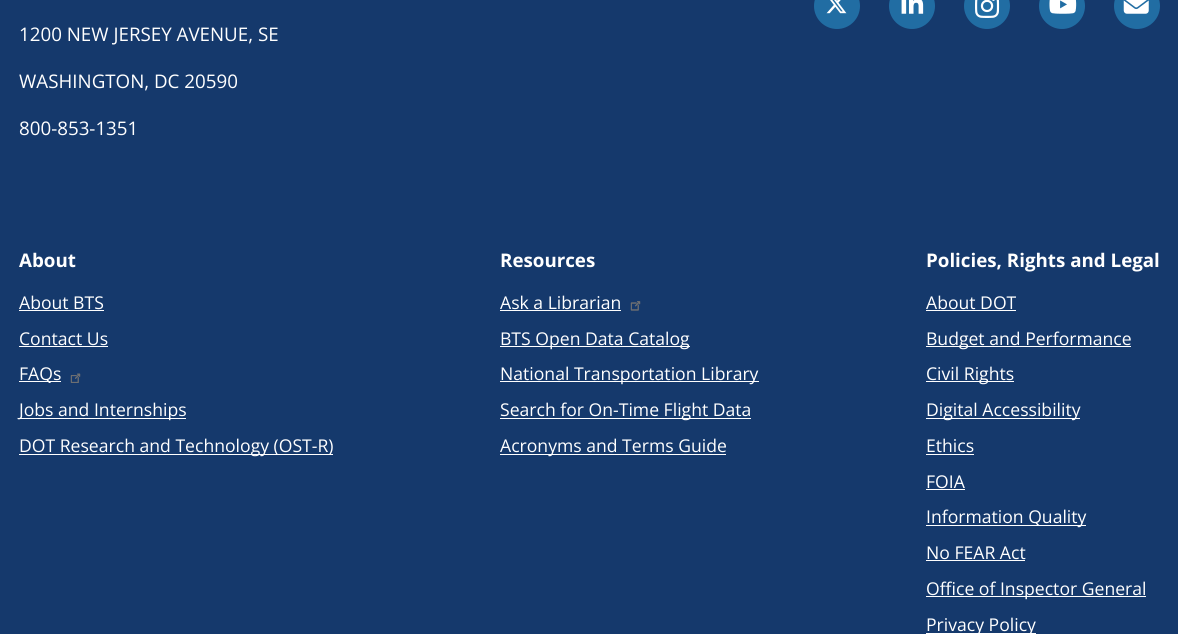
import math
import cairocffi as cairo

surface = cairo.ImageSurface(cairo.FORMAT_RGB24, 1178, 634)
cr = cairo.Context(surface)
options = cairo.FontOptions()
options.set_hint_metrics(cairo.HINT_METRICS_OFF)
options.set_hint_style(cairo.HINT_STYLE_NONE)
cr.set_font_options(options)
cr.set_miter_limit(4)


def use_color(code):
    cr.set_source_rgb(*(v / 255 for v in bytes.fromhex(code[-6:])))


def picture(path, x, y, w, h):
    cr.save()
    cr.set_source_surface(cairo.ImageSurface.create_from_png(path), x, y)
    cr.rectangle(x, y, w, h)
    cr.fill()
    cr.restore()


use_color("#15396c")
cr.paint()
use_color("#216da3")
cr.arc(837, 6, 23, 0, 2 * math.pi)
cr.fill()
picture("img1.png", 826, 0, 21, 14)
cr.arc(912, 6, 23, 0, 2 * math.pi)
cr.fill()
picture("img2.png", 901, 0, 23, 14)
cr.arc(987, 6, 23, 0, 2 * math.pi)
cr.fill()
picture("img3.png", 975, 0, 25, 18)
cr.arc(1062, 6, 23, 0, 2 * math.pi)
cr.fill()
picture("img4.png", 1049, 0, 28, 14)
cr.arc(1137, 6, 23, 0, 2 * math.pi)
cr.fill()
picture("img5.png", 1123, 0, 26, 14)
cr.select_font_face("Open Sans")
cr.set_font_size(18.75)
use_color("#ffffff")
cr.move_to(19, 41)
cr.show_text("1200 NEW JERSEY AVENUE, SE")
cr.move_to(19, 88)
cr.show_text("WASHINGTON, DC 20590")
cr.move_to(19, 135)
cr.show_text("800-853-1351")
cr.select_font_face("Open Sans", cairo.FONT_SLANT_NORMAL, cairo.FONT_WEIGHT_BOLD)
cr.move_to(19, 267)
cr.show_text("About")
cr.select_font_face("Open Sans")
cr.set_font_size(17.6)
cr.move_to(19, 309)
cr.show_text("About BTS")
cr.rectangle(19, 310, 85, 1)
cr.fill()
cr.move_to(19, 345)
cr.show_text("Contact Us")
cr.rectangle(19, 346, 89, 1)
cr.fill()
cr.rectangle(19, 381, 42, 1)
cr.fill()
cr.move_to(19, 380)
cr.show_text("FAQs")
picture("img6.png", 70, 373, 11, 10)
cr.rectangle(19, 418, 167, 1)
cr.fill()
cr.move_to(19, 416)
cr.show_text("Jobs and Internships")
cr.rectangle(19, 454, 314, 1)
cr.fill()
cr.move_to(19, 452)
cr.show_text("DOT Research and Technology (OST-R)")
cr.select_font_face("Open Sans", cairo.FONT_SLANT_NORMAL, cairo.FONT_WEIGHT_BOLD)
cr.set_font_size(18.75)
cr.move_to(500, 267)
cr.show_text("Resources")
cr.select_font_face("Open Sans")
cr.set_font_size(17.6)
cr.move_to(500, 309)
cr.show_text("Ask a Librarian")
cr.rectangle(500, 310, 121, 1)
cr.fill()
picture("img7.png", 630, 301, 11, 10)
cr.rectangle(500, 346, 190, 1)
cr.fill()
cr.move_to(500, 345)
cr.show_text("BTS Open Data Catalog")
cr.rectangle(500, 381, 259, 1)
cr.fill()
cr.move_to(500, 380)
cr.show_text("National Transportation Library")
cr.rectangle(500, 418, 251, 1)
cr.fill()
cr.move_to(500, 416)
cr.show_text("Search for On-Time Flight Data")
cr.rectangle(500, 454, 226, 1)
cr.fill()
cr.move_to(500, 452)
cr.show_text("Acronyms and Terms Guide")
cr.select_font_face("Open Sans", cairo.FONT_SLANT_NORMAL, cairo.FONT_WEIGHT_BOLD)
cr.set_font_size(18.75)
cr.move_to(926, 267)
cr.show_text("Policies, Rights and Legal")
cr.select_font_face("Open Sans")
cr.set_font_size(17.6)
cr.move_to(926, 309)
cr.show_text("About DOT")
cr.rectangle(926, 310, 90, 1)
cr.fill()
cr.rectangle(926, 346, 205, 1)
cr.fill()
cr.move_to(926, 345)
cr.show_text("Budget and Performance")
cr.rectangle(926, 381, 88, 1)
cr.fill()
cr.move_to(926, 380)
cr.show_text("Civil Rights")
cr.rectangle(926, 418, 154, 1)
cr.fill()
cr.move_to(926, 416)
cr.show_text("Digital Accessibility")
cr.move_to(926, 452)
cr.show_text("Ethics")
cr.rectangle(926, 454, 48, 1)
cr.fill()
cr.move_to(926, 488)
cr.show_text("FOIA")
cr.rectangle(926, 489, 39, 1)
cr.fill()
cr.rectangle(926, 525, 160, 1)
cr.fill()
cr.move_to(926, 523)
cr.show_text("Information Quality")
cr.move_to(926, 559)
cr.show_text("No FEAR Act")
cr.rectangle(926, 560, 99, 1)
cr.fill()
cr.rectangle(926, 596, 220, 1)
cr.fill()
cr.move_to(926, 595)
cr.show_text("Office of Inspector General")
cr.rectangle(926, 633, 110, 1)
cr.fill()
cr.move_to(926, 631)
cr.show_text("Privacy Policy")
surface.write_to_png("result.png")
